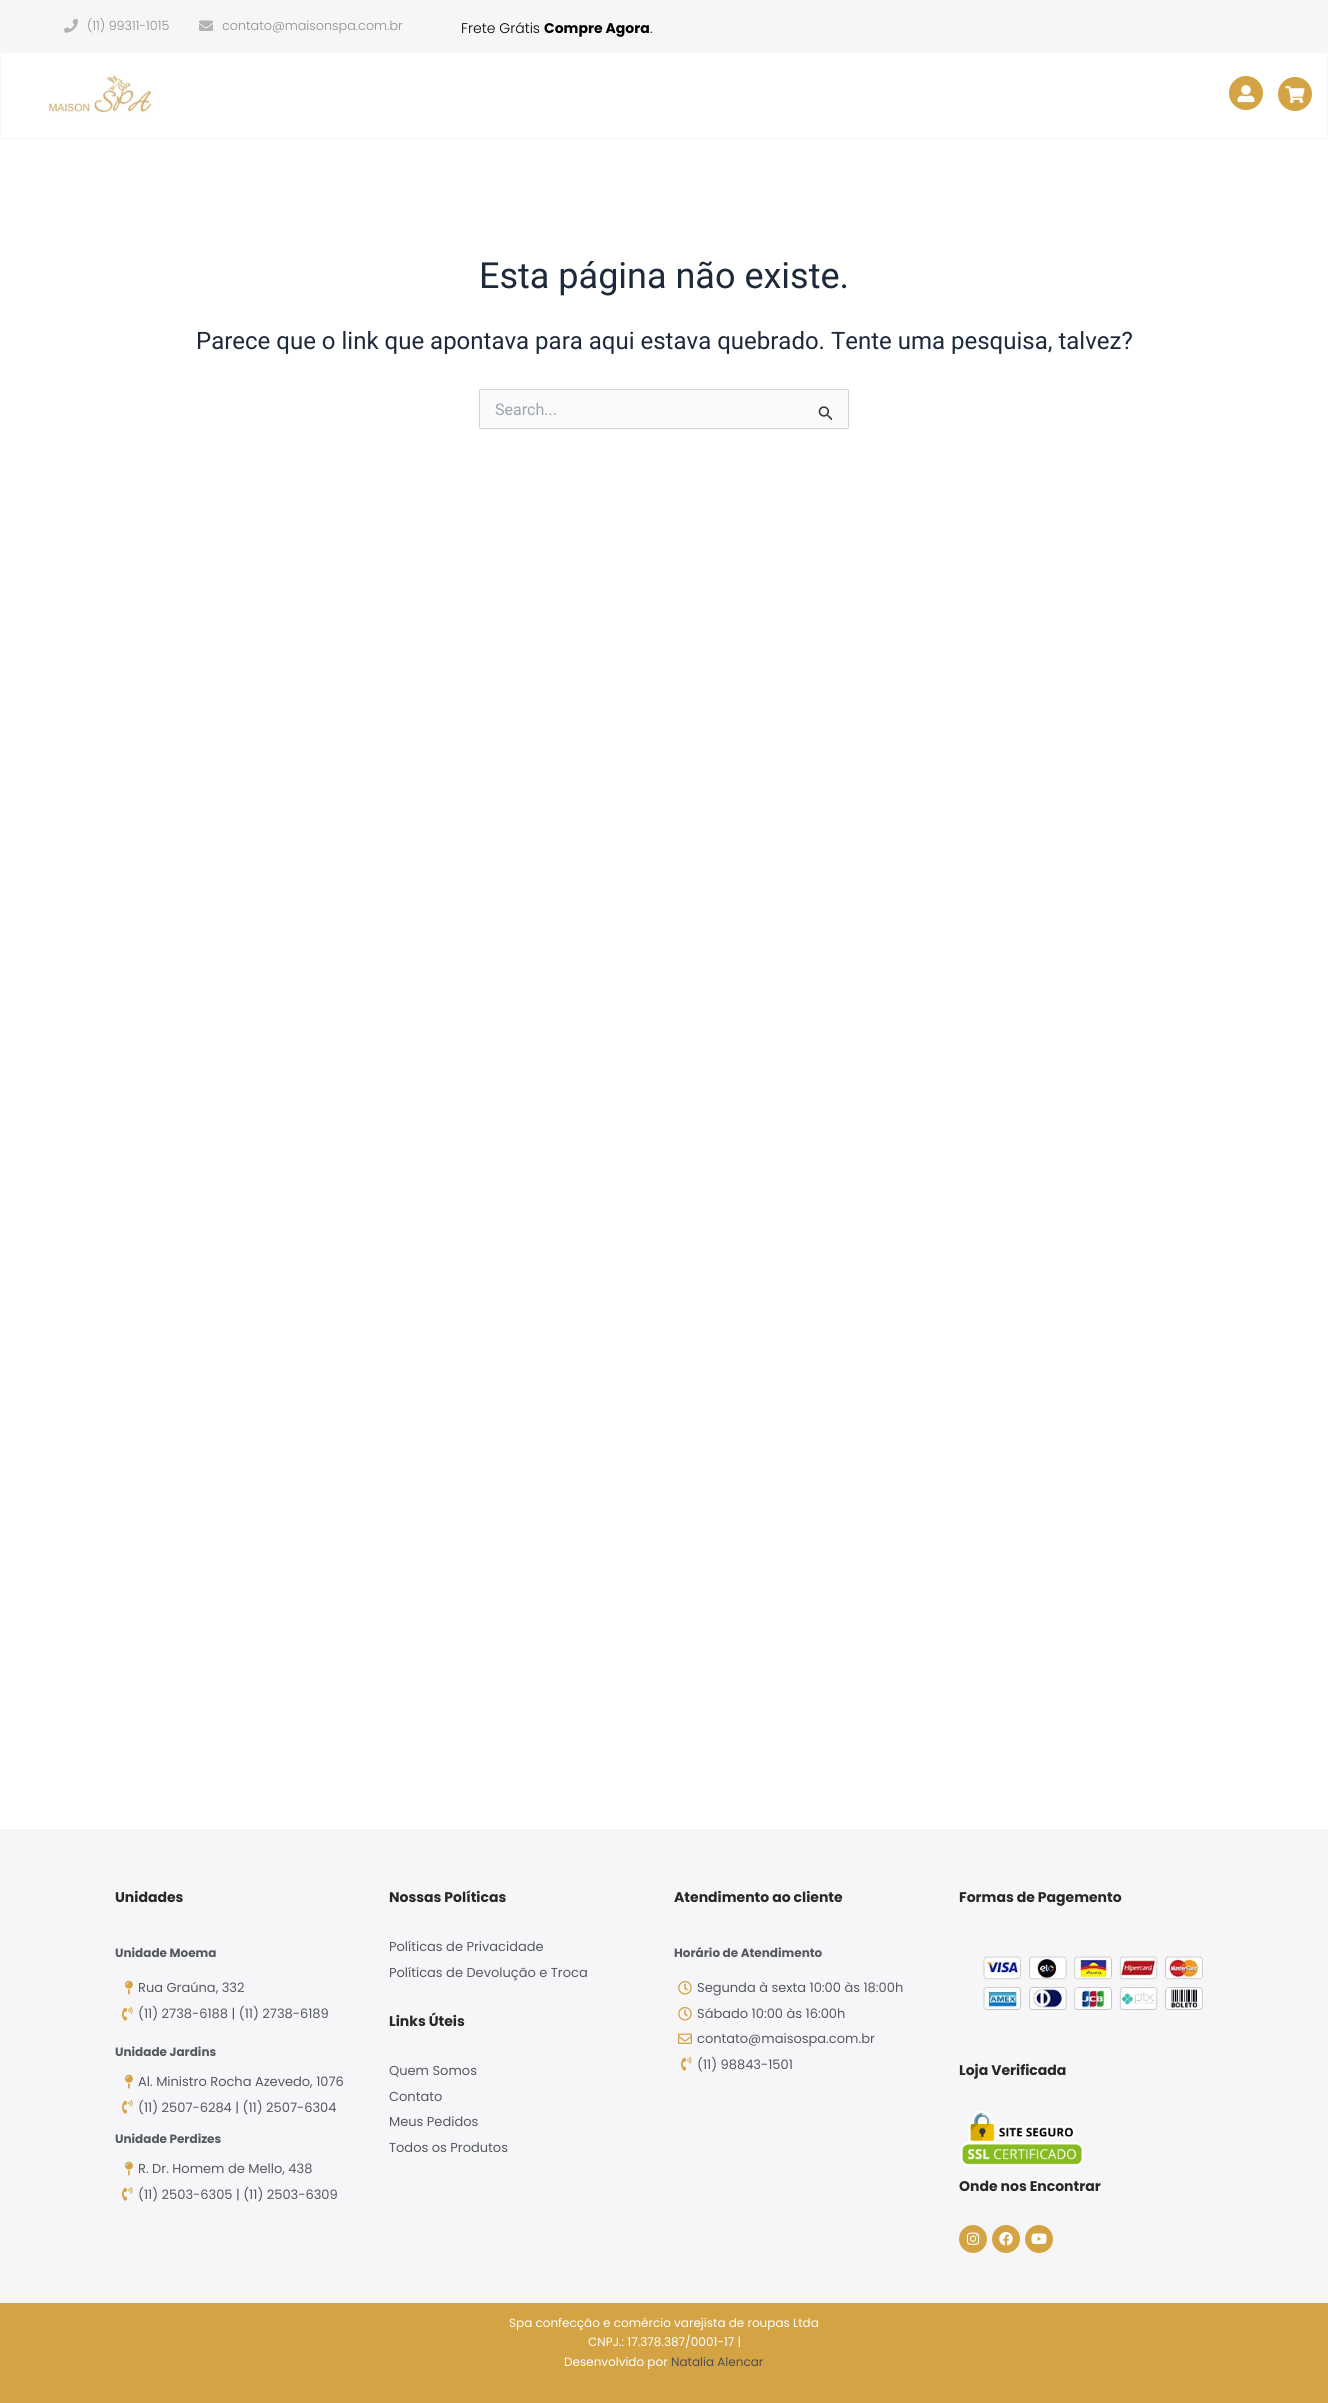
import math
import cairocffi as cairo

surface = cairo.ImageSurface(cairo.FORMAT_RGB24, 1328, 2403)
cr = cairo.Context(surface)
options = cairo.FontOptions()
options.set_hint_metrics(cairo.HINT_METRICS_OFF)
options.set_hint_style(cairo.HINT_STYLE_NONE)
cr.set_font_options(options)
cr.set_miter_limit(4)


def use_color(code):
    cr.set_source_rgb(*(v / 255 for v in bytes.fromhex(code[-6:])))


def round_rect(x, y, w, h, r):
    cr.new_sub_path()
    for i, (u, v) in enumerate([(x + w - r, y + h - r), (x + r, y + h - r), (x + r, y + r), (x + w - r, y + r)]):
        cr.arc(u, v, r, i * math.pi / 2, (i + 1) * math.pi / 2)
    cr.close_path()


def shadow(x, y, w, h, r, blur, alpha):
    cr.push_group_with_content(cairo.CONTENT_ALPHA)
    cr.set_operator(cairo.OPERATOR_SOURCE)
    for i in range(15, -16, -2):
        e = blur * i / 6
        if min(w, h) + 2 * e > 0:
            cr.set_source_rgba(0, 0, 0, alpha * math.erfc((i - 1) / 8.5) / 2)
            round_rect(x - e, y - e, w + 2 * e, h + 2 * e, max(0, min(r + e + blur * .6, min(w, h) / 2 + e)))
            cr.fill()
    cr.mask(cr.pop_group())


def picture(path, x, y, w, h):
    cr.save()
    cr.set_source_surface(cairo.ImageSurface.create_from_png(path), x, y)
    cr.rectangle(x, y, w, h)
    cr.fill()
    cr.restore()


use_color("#ffffff")
cr.paint()
use_color("#f6f6f8")
cr.rectangle(0, 0, 1328, 52)
cr.fill()
picture("img1.png", 64, 18, 14, 15)
cr.select_font_face("Poppins Light")
cr.set_font_size(12.75)
use_color("#8a8e8e")
cr.move_to(87, 30)
cr.show_text("(11) 99311-1015")
picture("img2.png", 199, 20, 14, 11)
cr.move_to(222, 30)
cr.show_text("contato@maisonspa.com.br")
cr.set_font_size(14)
use_color("#000000")
cr.move_to(461, 33)
cr.show_text("Frete Grátis")
cr.select_font_face("Poppins", cairo.FONT_SLANT_NORMAL, cairo.FONT_WEIGHT_BOLD)
cr.move_to(544, 33)
cr.show_text("Compre Agora")
cr.select_font_face("Poppins Light")
cr.move_to(650, 33)
cr.show_text(".")
cr.rectangle(0.5, 52.5, 1327, 86)
use_color("#f7f7f7")
cr.set_line_width(1)
cr.stroke()
picture("img3.png", 48, 74, 105, 39)
use_color("#d4a444")
cr.arc(1246, 93, 17, 0, 2 * math.pi)
cr.fill()
picture("img4.png", 1237, 85, 18, 18)
cr.arc(1295, 94, 17, 0, 2 * math.pi)
cr.fill()
picture("img5.png", 1285, 86, 20, 18)
cr.select_font_face("Roboto")
cr.set_font_size(36)
use_color("#1e293b")
cr.move_to(479, 288)
cr.show_text("Esta página não existe.")
cr.set_font_size(24)
cr.move_to(196, 349)
cr.show_text("Parece que o link que apontava para aqui estava quebrado. Tente uma pesquisa, talvez?")
use_color("#000000")
shadow(479, 390, 370, 40, 2, 1, 0.05)
use_color("#fafafa")
round_rect(479.5, 389.5, 369, 39, 1.5)
cr.fill_preserve()
use_color("#d1d5db")
cr.stroke()
cr.set_font_size(16)
use_color("#9ca3af")
cr.move_to(495, 415)
cr.show_text("Search...")
picture("img6.png", 818, 406, 14, 15)
use_color("#f6f6f8")
cr.rectangle(0, 1829, 1328, 474)
cr.fill()
cr.select_font_face("Poppins", cairo.FONT_SLANT_NORMAL, cairo.FONT_WEIGHT_BOLD)
cr.set_font_size(14)
use_color("#292626")
cr.move_to(115, 1902)
cr.show_text("Unidades")
cr.set_font_size(12)
use_color("#54595f")
cr.move_to(115, 1957)
cr.show_text("Unidade Moema")
picture("img7.png", 125, 1980, 8, 15)
cr.select_font_face("Poppins")
cr.set_font_size(13)
cr.move_to(138, 1992)
cr.show_text("Rua Graúna, 332")
picture("img8.png", 122, 2006, 11, 15)
cr.move_to(138, 2018)
cr.show_text("(11) 2738-6188 | (11) 2738-6189")
cr.select_font_face("Poppins", cairo.FONT_SLANT_NORMAL, cairo.FONT_WEIGHT_BOLD)
cr.set_font_size(12)
cr.move_to(115, 2056)
cr.show_text("Unidade Jardins")
picture("img7.png", 125, 2074, 8, 15)
cr.select_font_face("Poppins")
cr.set_font_size(13)
cr.move_to(138, 2086)
cr.show_text("Al. Ministro Rocha Azevedo, 1076")
picture("img8.png", 122, 2099, 11, 15)
cr.move_to(138, 2112)
cr.show_text("(11) 2507-6284 | (11) 2507-6304")
cr.select_font_face("Poppins", cairo.FONT_SLANT_NORMAL, cairo.FONT_WEIGHT_BOLD)
cr.set_font_size(12)
cr.move_to(115, 2143)
cr.show_text("Unidade Perdizes")
picture("img7.png", 125, 2161, 8, 15)
cr.select_font_face("Poppins")
cr.set_font_size(13)
cr.move_to(138, 2173)
cr.show_text("R. Dr. Homem de Mello, 438")
picture("img8.png", 122, 2186, 11, 15)
cr.move_to(138, 2199)
cr.show_text("(11) 2503-6305 | (11) 2503-6309")
cr.select_font_face("Poppins", cairo.FONT_SLANT_NORMAL, cairo.FONT_WEIGHT_BOLD)
cr.set_font_size(14)
use_color("#292626")
cr.move_to(389, 1902)
cr.show_text("Nossas Políticas")
cr.select_font_face("Poppins")
cr.set_font_size(13)
use_color("#54595f")
cr.move_to(389, 1951)
cr.show_text("Políticas de Privacidade")
cr.move_to(389, 1977)
cr.show_text("Políticas de Devolução e Troca")
cr.select_font_face("Poppins", cairo.FONT_SLANT_NORMAL, cairo.FONT_WEIGHT_BOLD)
cr.set_font_size(14)
use_color("#292626")
cr.move_to(389, 2026)
cr.show_text("Links Úteis")
cr.select_font_face("Poppins")
cr.set_font_size(13)
use_color("#54595f")
cr.move_to(389, 2075)
cr.show_text("Quem Somos")
cr.move_to(389, 2101)
cr.show_text("Contato")
cr.move_to(389, 2126)
cr.show_text("Meus Pedidos")
cr.move_to(389, 2152)
cr.show_text("Todos os Produtos")
cr.select_font_face("Poppins", cairo.FONT_SLANT_NORMAL, cairo.FONT_WEIGHT_BOLD)
cr.set_font_size(14)
use_color("#292626")
cr.move_to(674, 1902)
cr.show_text("Atendimento ao cliente")
cr.set_font_size(12)
use_color("#54595f")
cr.move_to(674, 1957)
cr.show_text("Horário de Atendimento")
picture("img9.png", 678, 1981, 14, 14)
cr.select_font_face("Poppins")
cr.set_font_size(13)
cr.move_to(697, 1992)
cr.show_text("Segunda à sexta 10:00 às 18:00h")
picture("img9.png", 678, 2007, 14, 14)
cr.move_to(697, 2018)
cr.show_text("Sábado 10:00 às 16:00h")
picture("img10.png", 678, 2033, 14, 11)
cr.move_to(697, 2043)
cr.show_text("contato@maisospa.com.br")
picture("img8.png", 681, 2056, 11, 15)
cr.move_to(697, 2069)
cr.show_text("(11) 98843-1501")
cr.select_font_face("Poppins", cairo.FONT_SLANT_NORMAL, cairo.FONT_WEIGHT_BOLD)
cr.set_font_size(14)
use_color("#292626")
cr.move_to(959, 1902)
cr.show_text("Formas de Pagemento")
picture("img11.png", 983, 1956, 220, 54)
cr.move_to(959, 2075)
cr.show_text("Loja Verificada")
picture("img12.png", 960, 2111, 124, 56)
cr.move_to(959, 2191)
cr.show_text("Onde nos Encontrar")
use_color("#d4a444")
cr.new_path()
cr.arc(973, 2239, 14, 0, 2 * math.pi)
cr.fill()
picture("img13.png", 966, 2232, 14, 13)
cr.arc(1006, 2239, 14, 0, 2 * math.pi)
cr.fill()
picture("img14.png", 999, 2232, 14, 14)
cr.arc(1039, 2239, 14, 0, 2 * math.pi)
cr.fill()
picture("img15.png", 1031, 2233, 16, 11)
cr.rectangle(0, 2303, 1328, 100)
cr.fill()
cr.select_font_face("Poppins")
cr.set_font_size(12)
use_color("#ffffff")
cr.move_to(509, 2327)
cr.show_text("Spa confecção e comércio varejista de roupas Ltda")
cr.move_to(588, 2346)
cr.show_text("CNPJ.: 17.378.387/0001-17 |")
cr.move_to(564, 2366)
cr.show_text("Desenvolvido por")
use_color("#4e4e4e")
cr.move_to(671, 2366)
cr.show_text("Natalia Alencar")
surface.write_to_png("result.png")
